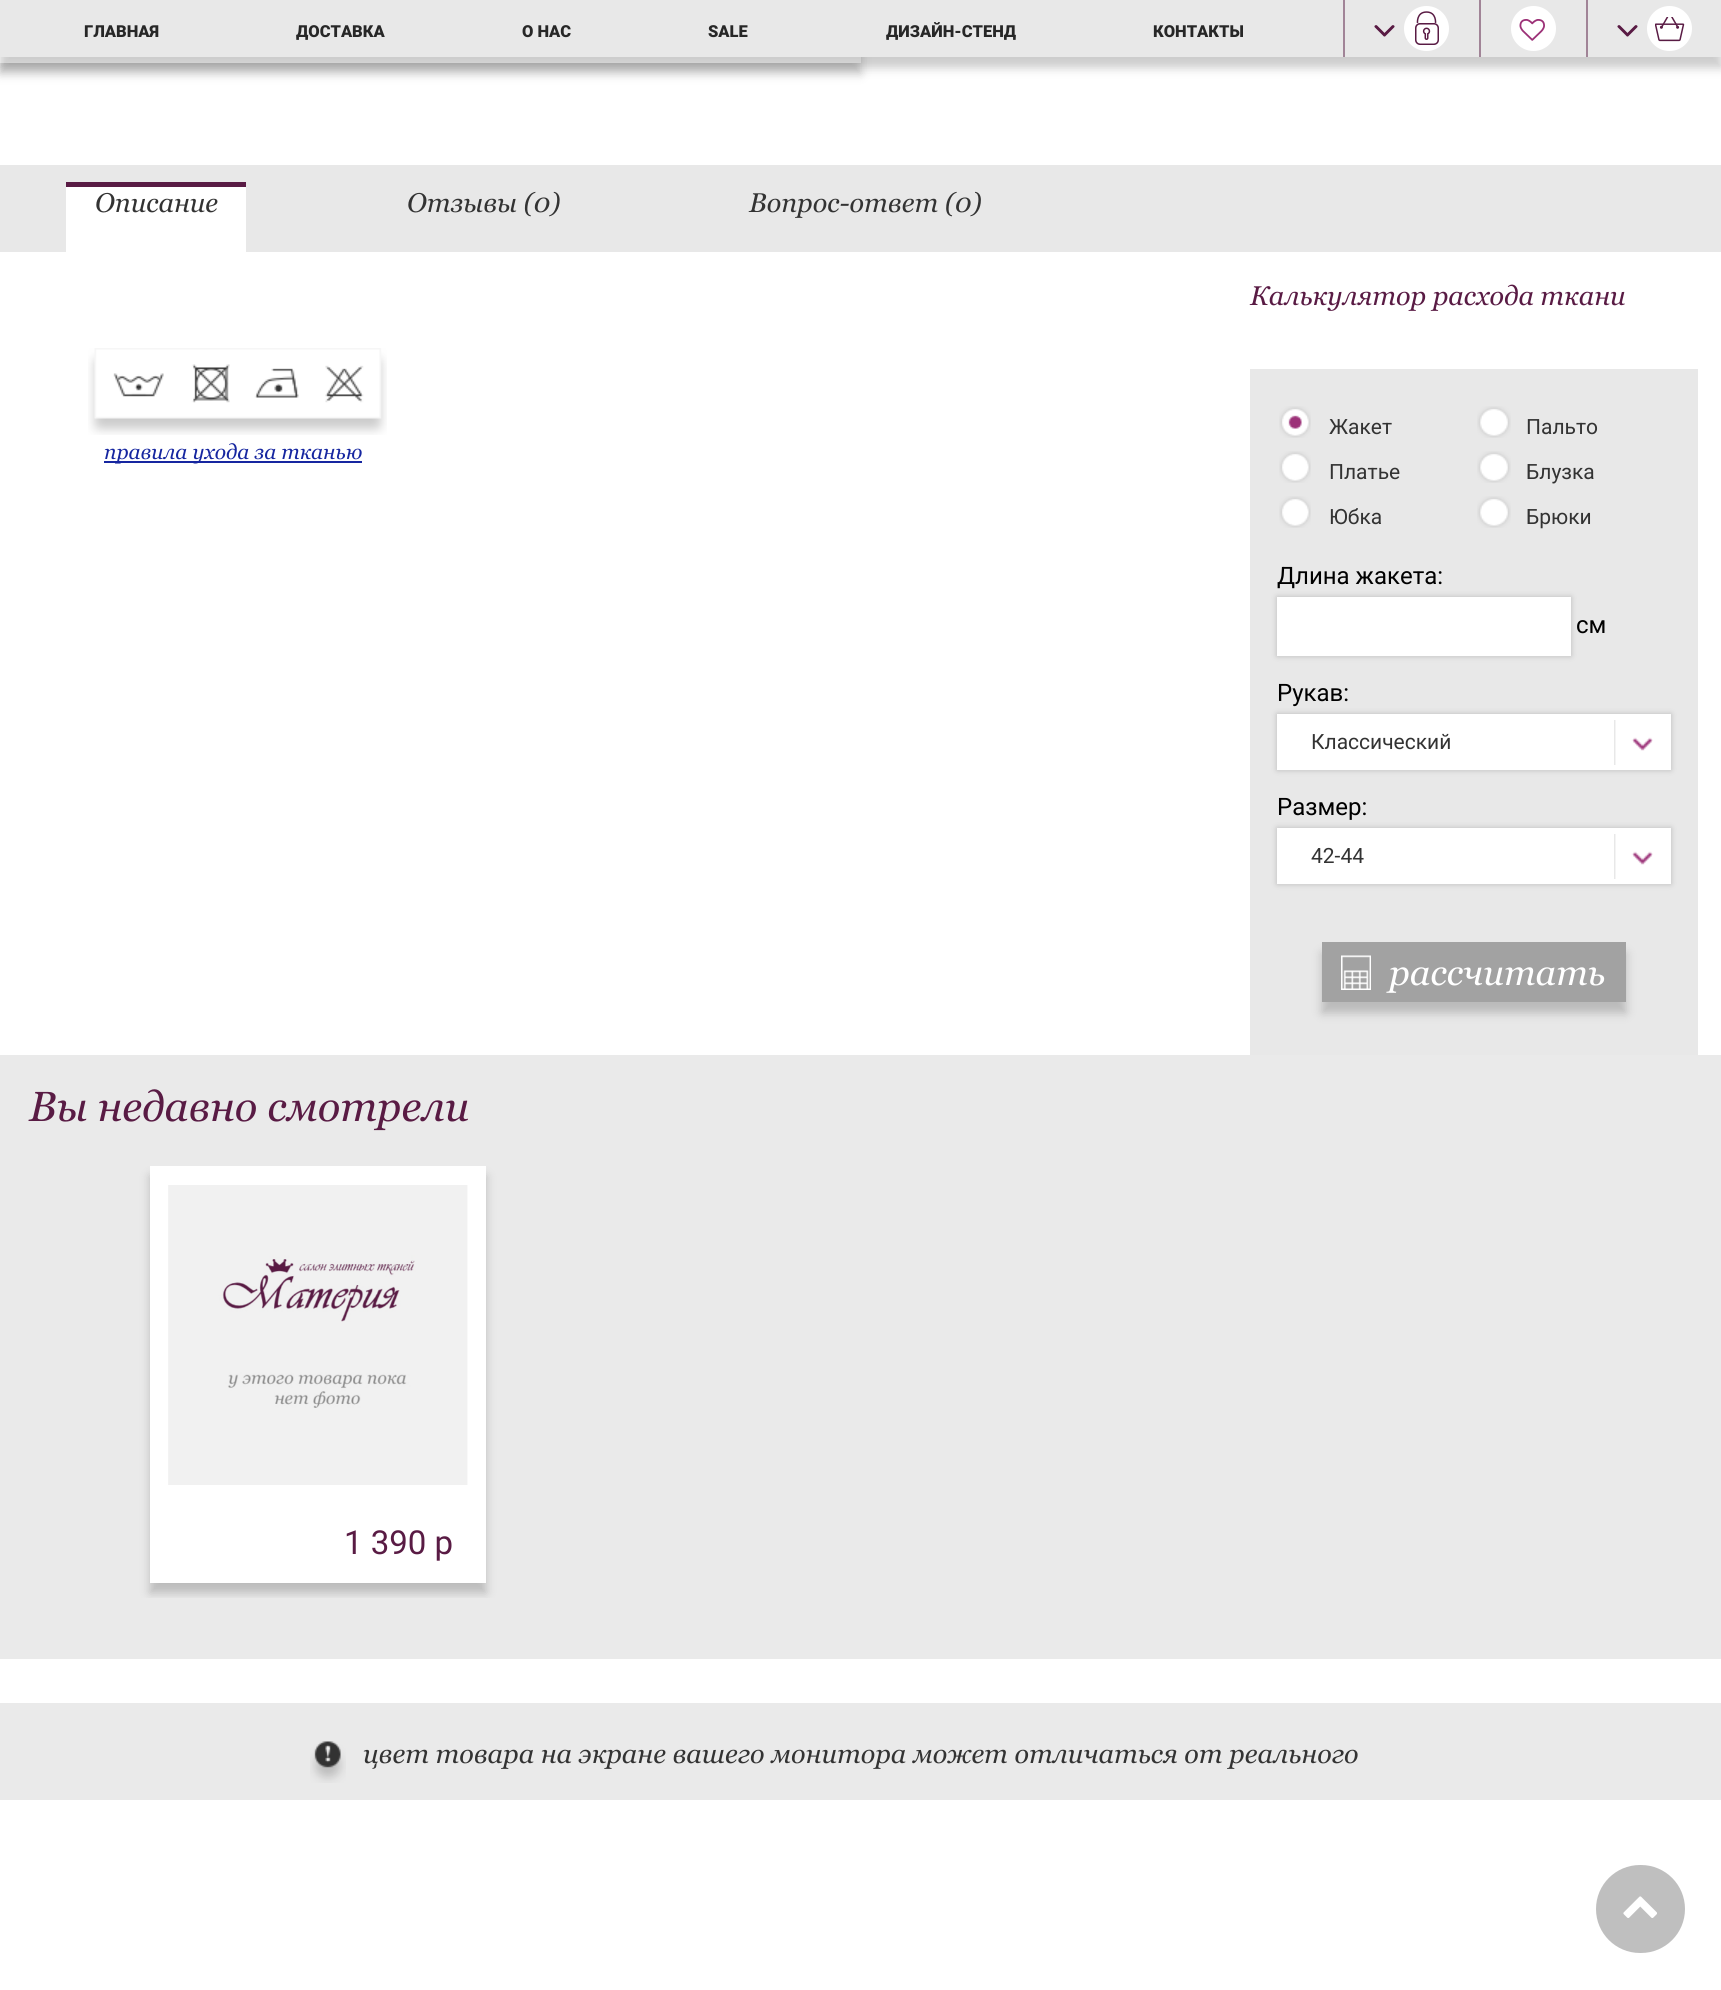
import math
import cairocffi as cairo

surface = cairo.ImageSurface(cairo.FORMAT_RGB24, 1721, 1990)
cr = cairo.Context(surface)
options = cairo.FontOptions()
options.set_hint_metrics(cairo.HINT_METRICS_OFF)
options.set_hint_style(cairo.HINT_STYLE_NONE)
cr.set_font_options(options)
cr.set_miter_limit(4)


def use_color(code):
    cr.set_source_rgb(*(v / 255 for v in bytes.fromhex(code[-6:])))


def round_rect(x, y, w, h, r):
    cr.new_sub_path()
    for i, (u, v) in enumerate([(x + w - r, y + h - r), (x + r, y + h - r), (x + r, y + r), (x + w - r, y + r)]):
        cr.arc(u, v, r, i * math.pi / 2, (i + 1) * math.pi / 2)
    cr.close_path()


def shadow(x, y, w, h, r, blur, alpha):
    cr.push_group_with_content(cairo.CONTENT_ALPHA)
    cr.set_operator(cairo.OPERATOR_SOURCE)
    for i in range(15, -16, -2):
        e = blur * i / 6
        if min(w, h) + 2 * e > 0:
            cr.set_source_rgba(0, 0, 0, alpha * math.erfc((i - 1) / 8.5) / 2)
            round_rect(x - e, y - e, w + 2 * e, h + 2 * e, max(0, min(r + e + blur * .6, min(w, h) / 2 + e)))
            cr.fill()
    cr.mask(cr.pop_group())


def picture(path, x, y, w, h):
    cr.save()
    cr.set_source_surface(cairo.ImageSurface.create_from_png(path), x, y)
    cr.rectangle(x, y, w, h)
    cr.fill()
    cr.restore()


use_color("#ffffff")
cr.paint()
use_color("#000000")
shadow(0, 11, 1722, 57, 0, 5, 0.2)
cr.save()
cr.set_fill_rule(cairo.FILL_RULE_EVEN_ODD)
cr.new_path()
cr.move_to(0, 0)
cr.line_to(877, 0)
cr.line_to(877, 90)
cr.line_to(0, 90)
cr.close_path()
cr.move_to(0, -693)
cr.line_to(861, -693)
cr.line_to(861, 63)
cr.line_to(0, 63)
cr.close_path()
cr.clip()
shadow(0, -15, 861, 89, 0, 5, 0.2)
cr.restore()
use_color("#e8e8e8")
cr.rectangle(0, 0, 1721, 57)
cr.fill()
cr.select_font_face("Roboto Black")
cr.set_font_size(16.5)
use_color("#272727")
cr.move_to(84, 37)
cr.show_text("ГЛАВНАЯ")
cr.move_to(296, 37)
cr.show_text("ДОСТАВКА")
cr.move_to(522, 37)
cr.show_text("О НАС")
cr.move_to(708, 37)
cr.show_text("SALE")
cr.move_to(886, 37)
cr.show_text("ДИЗАЙН-СТЕНД")
cr.move_to(1153, 37)
cr.show_text("КОНТАКТЫ")
use_color("#a18497")
cr.rectangle(1343, 0, 2, 57)
cr.fill()
use_color("#ffffff")
cr.arc(1426.5, 28.5, 22.5, 0, 2 * math.pi)
cr.fill()
picture("img1.png", 1415, 11, 24, 34)
picture("img2.png", 1374, 25, 21, 12)
use_color("#a18497")
cr.rectangle(1479, 0, 2, 57)
cr.fill()
use_color("#ffffff")
cr.arc(1533.5, 28.5, 22.5, 0, 2 * math.pi)
cr.fill()
picture("img3.png", 1519, 19, 26, 22)
use_color("#a18497")
cr.rectangle(1586, 0, 2, 57)
cr.fill()
use_color("#ffffff")
cr.arc(1669.5, 28.5, 22.5, 0, 2 * math.pi)
cr.fill()
picture("img4.png", 1655, 17, 30, 25)
picture("img2.png", 1617, 25, 21, 12)
use_color("#e8e8e8")
cr.rectangle(0, 165, 1721, 87)
cr.fill()
use_color("#ffffff")
cr.rectangle(66, 187, 180, 65)
cr.fill()
cr.select_font_face("Georgia", cairo.FONT_SLANT_ITALIC)
cr.set_font_size(27)
use_color("#333333")
cr.move_to(95, 212)
cr.show_text("Описание")
use_color("#591b44")
cr.rectangle(66, 182, 180, 5)
cr.fill()
use_color("#333333")
cr.move_to(407, 212)
cr.show_text("Отзывы (0)")
cr.move_to(749, 212)
cr.show_text("Вопрос-ответ (0)")
picture("img5.png", 88, 348, 299, 87)
use_color("#1626a0")
cr.rectangle(104, 461, 258, 2)
cr.fill()
cr.set_font_size(21)
cr.move_to(104, 459)
cr.show_text("правила ухода за тканью")
use_color("#e8e8e8")
cr.rectangle(1250, 369, 448, 686)
cr.fill()
cr.set_font_size(27)
use_color("#591b44")
cr.move_to(1250, 305)
cr.show_text("Калькулятор расхода ткани")
picture("img6.png", 1279, 406, 32, 32)
cr.select_font_face("Roboto")
cr.set_font_size(21)
use_color("#333333")
cr.move_to(1329, 434)
cr.show_text("Жакет")
picture("img7.png", 1477, 406, 34, 32)
cr.move_to(1526, 434)
cr.show_text("Пальто")
picture("img8.png", 1279, 451, 32, 32)
cr.move_to(1329, 479)
cr.show_text("Платье")
picture("img7.png", 1477, 451, 34, 32)
cr.move_to(1526, 479)
cr.show_text("Блузка")
picture("img8.png", 1279, 496, 32, 32)
cr.move_to(1329, 524)
cr.show_text("Юбка")
picture("img7.png", 1477, 496, 34, 32)
cr.move_to(1526, 524)
cr.show_text("Брюки")
cr.set_font_size(24)
use_color("#000000")
cr.move_to(1277, 584)
cr.show_text("Длина жакета:")
use_color("#000000")
shadow(1277, 597, 294, 59, 0, 3, 0.2)
use_color("#ffffff")
cr.rectangle(1277, 597, 294, 59)
cr.fill()
use_color("#000000")
cr.move_to(1576, 633)
cr.show_text("см")
cr.move_to(1277, 701)
cr.show_text("Рукав:")
use_color("#000000")
shadow(1277, 714, 394, 56, 0, 3, 0.2)
use_color("#ffffff")
cr.rectangle(1277, 714, 394, 56)
cr.fill()
picture("img9.png", 1614, 720, 39, 45)
cr.set_font_size(21)
use_color("#333333")
cr.move_to(1311, 749)
cr.show_text("Классический")
cr.set_font_size(24)
use_color("#000000")
cr.move_to(1277, 815)
cr.show_text("Размер:")
use_color("#000000")
shadow(1277, 828, 394, 56, 0, 3, 0.2)
use_color("#ffffff")
cr.rectangle(1277, 828, 394, 56)
cr.fill()
picture("img9.png", 1614, 834, 39, 45)
cr.set_font_size(21)
use_color("#333333")
cr.move_to(1311, 863)
cr.show_text("42-44")
use_color("#000000")
shadow(1322, 953, 304, 60, 0, 5, 0.2)
use_color("#a2a2a2")
cr.rectangle(1322, 942, 304, 60)
cr.fill()
picture("img10.png", 1341, 955, 30, 35)
cr.select_font_face("Georgia", cairo.FONT_SLANT_ITALIC)
cr.set_font_size(36)
use_color("#ffffff")
cr.move_to(1389, 985)
cr.show_text("рассчитать")
use_color("#eaeaea")
cr.rectangle(0, 1055, 1721, 604)
cr.fill()
cr.set_font_size(42)
use_color("#591b44")
cr.move_to(29, 1121)
cr.show_text("Вы недавно смотрели")
cr.save()
cr.rectangle(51, 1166, 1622, 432)
cr.clip()
use_color("#000000")
shadow(150, 1176, 336, 417, 0, 5, 0.2)
cr.restore()
use_color("#ffffff")
cr.rectangle(150, 1166, 336, 417)
cr.fill()
picture("img11.png", 168, 1185, 300, 300)
cr.select_font_face("Roboto")
cr.set_font_size(33)
use_color("#591b44")
cr.move_to(344, 1554)
cr.show_text("1 390 р")
use_color("#eaeaea")
cr.rectangle(0, 1703, 1721, 97)
cr.fill()
picture("img12.png", 310, 1741, 36, 42)
cr.select_font_face("Georgia", cairo.FONT_SLANT_ITALIC)
cr.set_font_size(27)
use_color("#333333")
cr.move_to(363, 1763)
cr.show_text("цвет товара на экране вашего монитора может отличаться от реального")
use_color("#bfbfbf")
round_rect(1596, 1865, 89, 88, 44)
cr.fill()
picture("img13.png", 1623, 1896, 34, 22)
surface.write_to_png("result.png")
